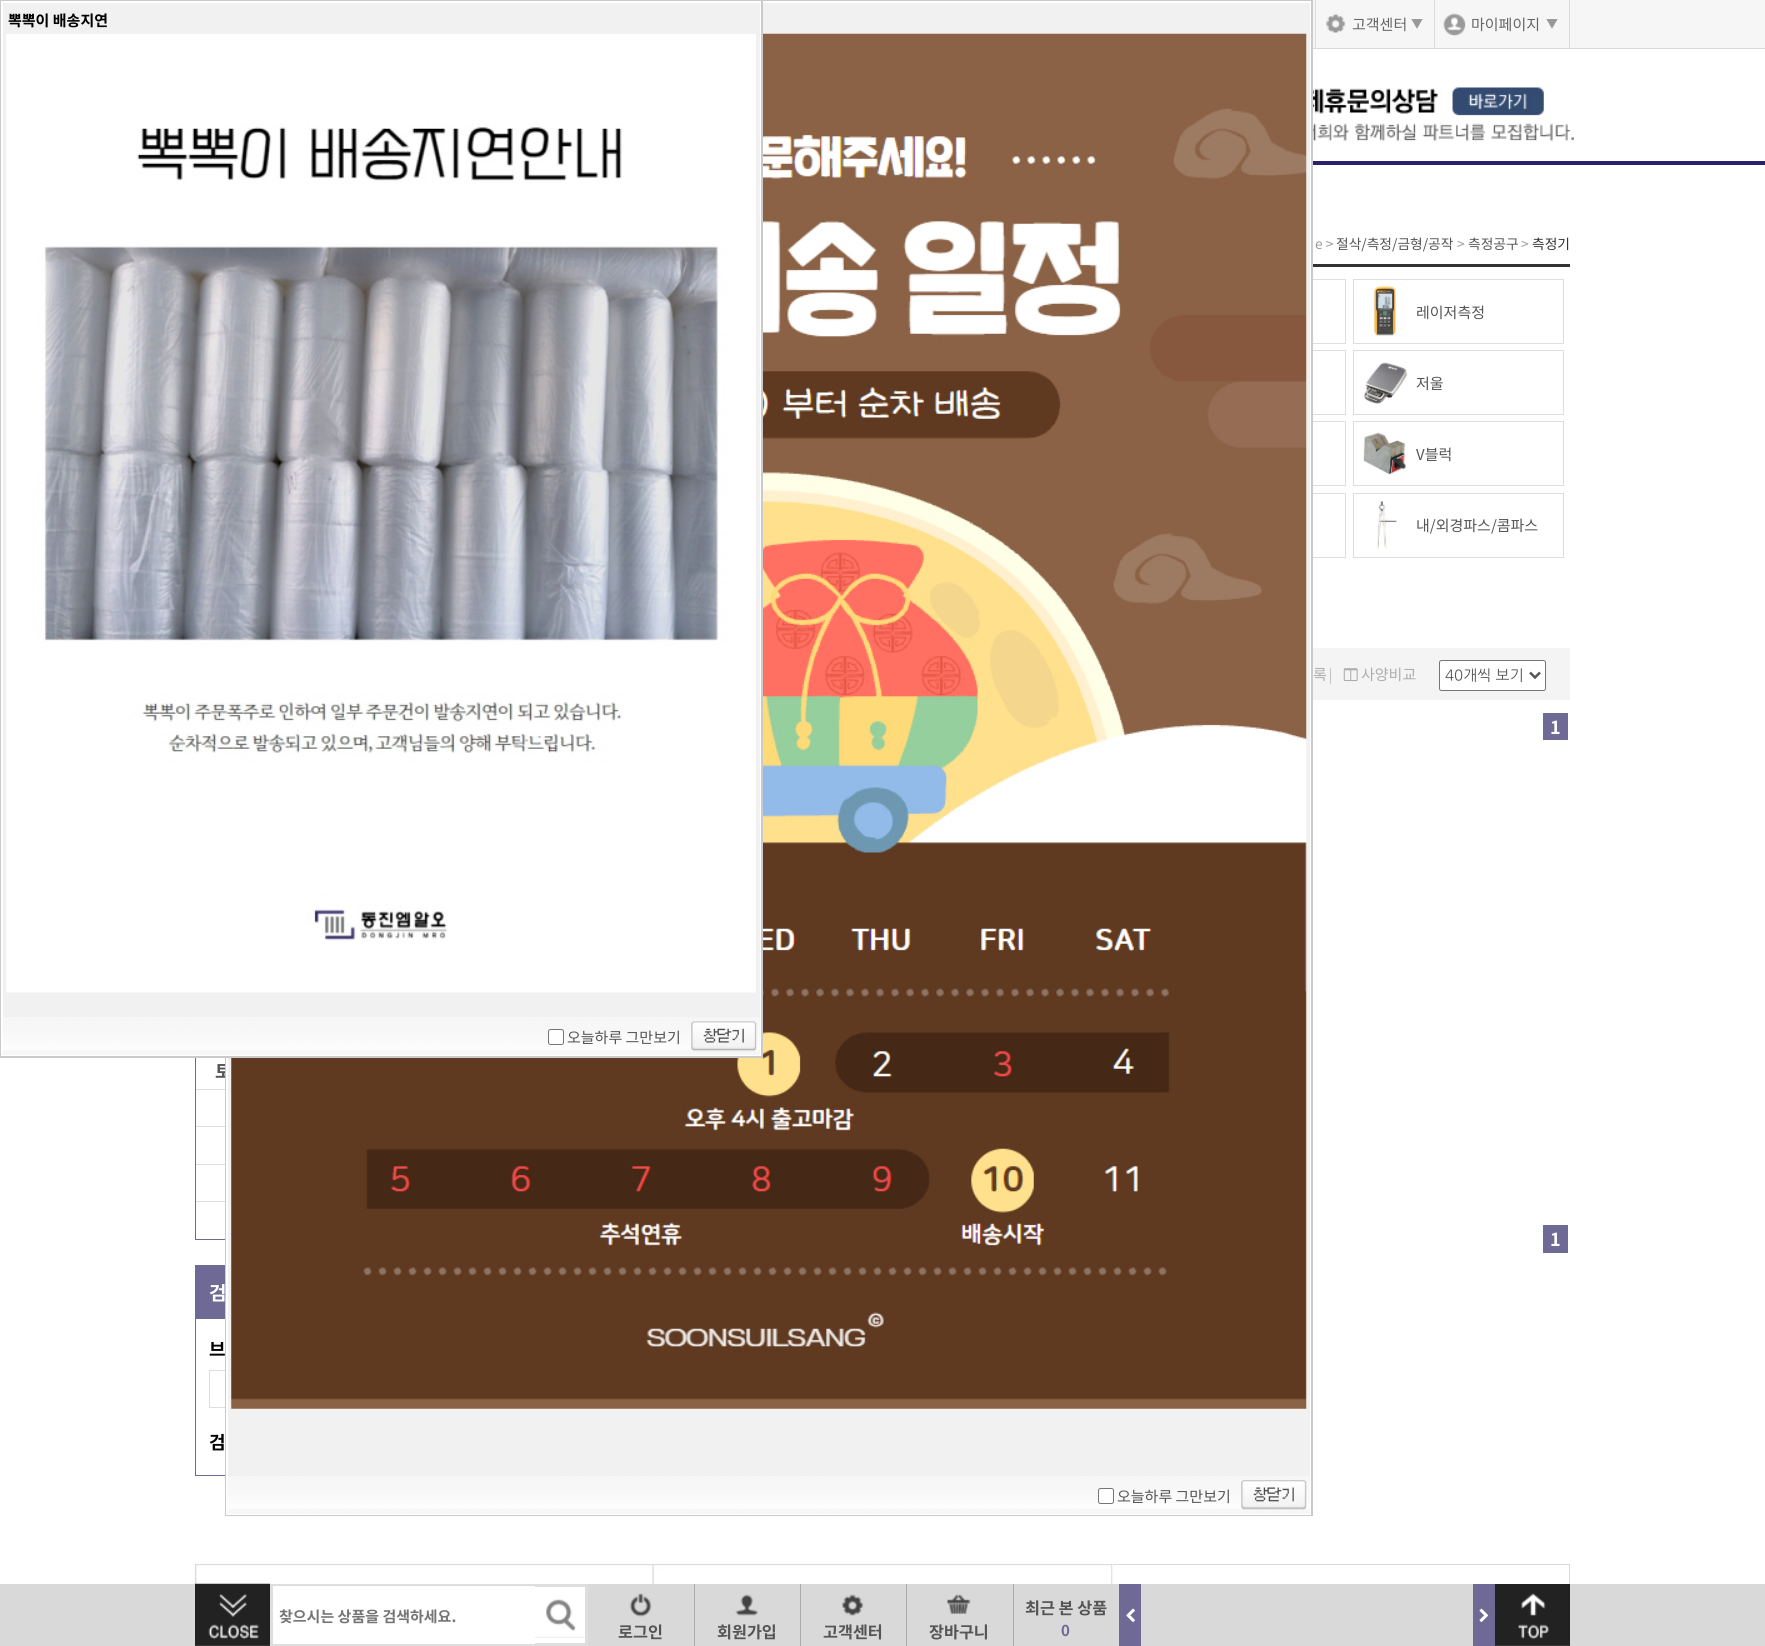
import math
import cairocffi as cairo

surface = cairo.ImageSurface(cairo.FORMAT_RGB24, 1765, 1646)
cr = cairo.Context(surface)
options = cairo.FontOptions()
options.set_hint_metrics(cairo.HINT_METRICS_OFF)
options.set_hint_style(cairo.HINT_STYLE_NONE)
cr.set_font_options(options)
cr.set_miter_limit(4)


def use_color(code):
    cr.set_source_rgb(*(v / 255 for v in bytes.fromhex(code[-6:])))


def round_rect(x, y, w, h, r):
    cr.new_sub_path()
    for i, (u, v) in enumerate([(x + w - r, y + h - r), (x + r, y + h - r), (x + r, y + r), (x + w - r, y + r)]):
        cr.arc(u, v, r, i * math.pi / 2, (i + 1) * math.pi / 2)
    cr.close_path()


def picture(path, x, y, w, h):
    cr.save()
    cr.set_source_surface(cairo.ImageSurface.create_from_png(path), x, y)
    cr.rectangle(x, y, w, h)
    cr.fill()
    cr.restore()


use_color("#ffffff")
cr.paint()
cr.rectangle(195.5, 279.5, 262, 960)
use_color("#6e6a95")
cr.set_line_width(1)
cr.stroke()
cr.select_font_face("Noto Sans KR", cairo.FONT_SLANT_NORMAL, cairo.FONT_WEIGHT_BOLD)
cr.set_font_size(18)
use_color("#555555")
cr.move_to(215, 1078)
cr.show_text("토")
cr.rectangle(195.5, 1265.5, 262, 210)
use_color("#6e6a95")
cr.stroke()
cr.rectangle(209.5, 1370.5, 231, 37)
use_color("#dedede")
cr.stroke()
cr.rectangle(1135.5, 279.5, 210, 64)
cr.stroke()
cr.rectangle(1135.5, 350.5, 210, 64)
cr.stroke()
cr.rectangle(1135.5, 421.5, 210, 64)
cr.stroke()
cr.rectangle(1135.5, 493.5, 210, 64)
cr.stroke()
use_color("#cacaca")
cr.rectangle(225, 0, 1088, 1516)
cr.fill()
use_color("#ffffff")
cr.rectangle(226, 1, 1085, 1514)
cr.fill()
use_color("#f1f1f1")
cr.rectangle(228, 3, 1082, 1511)
cr.fill()
picture("img24.png", 231, 33, 1076, 1376)
use_color("#cacaca")
cr.rectangle(0, 0, 763, 1058)
cr.fill()
use_color("#ffffff")
cr.rectangle(1, 1, 760, 1055)
cr.fill()
use_color("#f1f1f1")
cr.rectangle(3, 3, 757, 1015)
cr.fill()
cr.set_font_size(15)
use_color("#000000")
cr.move_to(8, 26)
cr.show_text("뽁뽁이 배송지연")
picture("img1.png", 6, 34, 750, 959)
picture("img2.png", 2, 1017, 758, 38)
use_color("#ffffff")
round_rect(548.5, 1029.5, 15, 15, 2)
cr.fill_preserve()
use_color("#767676")
cr.stroke()
cr.select_font_face("Noto Sans KR")
use_color("#555555")
cr.move_to(567, 1043)
cr.show_text("오늘하루 그만보기")
picture("img3.png", 691, 1021, 66, 31)
use_color("#29216b")
cr.rectangle(1313, 161, 452, 4)
cr.fill()
use_color("#f6f6f6")
cr.rectangle(1313, 0, 452, 48)
cr.fill()
use_color("#d9d9d9")
cr.rectangle(1313, 48, 452, 1)
cr.fill()
picture("img4.png", 1326, 13, 20, 20)
use_color("#dcdcdc")
cr.rectangle(1315, 0, 1, 48)
cr.fill()
use_color("#666666")
cr.move_to(1352, 30)
cr.show_text("고객센터")
cr.set_font_size(12)
use_color("#999999")
cr.move_to(1411, 28)
cr.show_text("▼")
picture("img5.png", 1443, 13, 23, 24)
use_color("#dcdcdc")
cr.rectangle(1569, 0, 1, 48)
cr.fill()
cr.rectangle(1434, 0, 1, 48)
cr.fill()
cr.set_font_size(15)
use_color("#666666")
cr.move_to(1471, 30)
cr.show_text("마이페이지")
cr.set_font_size(12)
use_color("#999999")
cr.move_to(1546, 28)
cr.show_text("▼")
picture("img6.png", 1313, 87, 261, 55)
use_color("#333333")
cr.rectangle(1313, 264, 257, 3)
cr.fill()
cr.set_font_size(13.75)
use_color("#999999")
cr.move_to(1315, 249)
cr.show_text("e >")
use_color("#555555")
cr.move_to(1336, 249)
cr.show_text("절삭/측정/금형/공작")
use_color("#999999")
cr.move_to(1457, 249)
cr.show_text(">")
use_color("#555555")
cr.move_to(1468, 249)
cr.show_text("측정공구")
use_color("#999999")
cr.move_to(1521, 249)
cr.show_text(">")
use_color("#333333")
cr.move_to(1532, 249)
cr.show_text("측정기")
use_color("#dedede")
cr.rectangle(196, 1089, 29, 1)
cr.fill()
cr.rectangle(196, 1126, 29, 1)
cr.fill()
cr.rectangle(196, 1164, 29, 1)
cr.fill()
cr.rectangle(196, 1201, 29, 1)
cr.fill()
use_color("#6e6a95")
cr.rectangle(196, 1266, 29, 53)
cr.fill()
cr.select_font_face("Noto Sans KR", cairo.FONT_SLANT_NORMAL, cairo.FONT_WEIGHT_BOLD)
cr.set_font_size(19)
use_color("#ffffff")
cr.move_to(209, 1300)
cr.show_text("검")
cr.set_font_size(18)
use_color("#000000")
cr.move_to(209, 1356)
cr.show_text("브")
cr.move_to(209, 1449)
cr.show_text("검")
cr.rectangle(1353.5, 279.5, 210, 64)
use_color("#dedede")
cr.stroke()
picture("img7.png", 1372, 286, 26, 50)
cr.select_font_face("Noto Sans KR")
cr.set_font_size(15)
use_color("#555555")
cr.move_to(1416, 318)
cr.show_text("레이저측정")
cr.rectangle(1353.5, 350.5, 210, 64)
use_color("#dedede")
cr.stroke()
picture("img8.png", 1363, 362, 45, 42)
use_color("#555555")
cr.move_to(1416, 389)
cr.show_text("저울")
cr.rectangle(1353.5, 421.5, 210, 64)
use_color("#dedede")
cr.stroke()
picture("img9.png", 1363, 432, 44, 43)
use_color("#555555")
cr.move_to(1416, 460)
cr.show_text("V블럭")
cr.rectangle(1353.5, 493.5, 210, 64)
use_color("#dedede")
cr.stroke()
picture("img10.png", 1377, 501, 20, 48)
use_color("#555555")
cr.move_to(1416, 531)
cr.show_text("내/외경파스/콤파스")
use_color("#f4f4f4")
cr.rectangle(1313, 648, 257, 52)
cr.fill()
use_color("#adadad")
cr.move_to(1313, 680)
cr.show_text("록")
use_color("#c4c4c4")
cr.rectangle(1330, 668, 1, 16)
cr.fill()
picture("img11.png", 1343, 668, 15, 14)
use_color("#adadad")
cr.move_to(1361, 680)
cr.show_text("사양비교")
use_color("#ffffff")
round_rect(1439.5, 660.5, 106, 30, 2)
cr.fill_preserve()
use_color("#767676")
cr.stroke()
cr.new_path()
cr.move_to(1530, 672.5)
cr.line_to(1535, 677.5)
cr.line_to(1540, 672.5)
use_color("#555555")
cr.set_line_width(2.5)
cr.stroke()
cr.select_font_face("NanumGothic")
cr.move_to(1445, 680)
cr.show_text("40개씩 보기")
use_color("#6e6a95")
cr.rectangle(1543, 713, 25, 27)
cr.fill()
cr.select_font_face("Noto Sans KR", cairo.FONT_SLANT_NORMAL, cairo.FONT_WEIGHT_BOLD)
cr.set_font_size(18)
use_color("#ffffff")
cr.move_to(1550, 734)
cr.show_text("1")
use_color("#6e6a95")
cr.rectangle(1543, 1225, 25, 28)
cr.fill()
use_color("#ffffff")
cr.move_to(1550, 1246)
cr.show_text("1")
picture("img22.png", 195, 1564, 458, 20)
picture("img12.png", 195, 1583, 75, 1)
use_color("#d9d9d9")
cr.rectangle(0, 1584, 1765, 62)
cr.fill()
picture("img13.png", 195, 1584, 75, 62)
use_color("#ffffff")
cr.rectangle(535, 1587, 50, 56)
cr.fill()
cr.rectangle(271.5, 1585.5, 315, 59)
use_color("#dedede")
cr.set_line_width(3)
cr.stroke()
use_color("#ffffff")
cr.rectangle(273, 1586, 262, 58)
cr.fill()
cr.set_font_size(15)
use_color("#757575")
cr.move_to(279, 1622)
cr.show_text("찾으시는 상품을 검색하세요.")
use_color("#dedede")
cr.rectangle(535, 1636, 50, 2)
cr.fill()
picture("img14.png", 535, 1593, 50, 45)
cr.set_font_size(16.25)
use_color("#555555")
cr.move_to(1025, 1614)
cr.show_text("최근 본 상품")
cr.set_font_size(15)
use_color("#6e6a95")
cr.move_to(1061, 1636)
cr.show_text("0")
cr.rectangle(1119, 1584, 22, 62)
cr.fill()
picture("img15.png", 1126, 1608, 9, 14)
cr.rectangle(1473, 1584, 22, 62)
cr.fill()
picture("img16.png", 1479, 1608, 10, 14)
picture("img17.png", 1495, 1584, 75, 62)
picture("img18.png", 629, 1593, 23, 24)
use_color("#ababab")
cr.rectangle(694, 1584, 1, 62)
cr.fill()
cr.set_font_size(16.25)
use_color("#555555")
cr.move_to(618, 1638)
cr.show_text("로그인")
picture("img19.png", 735, 1594, 23, 22)
use_color("#ababab")
cr.rectangle(800, 1584, 1, 62)
cr.fill()
use_color("#555555")
cr.move_to(717, 1638)
cr.show_text("회원가입")
picture("img20.png", 842, 1594, 22, 22)
use_color("#ababab")
cr.rectangle(906, 1584, 1, 62)
cr.fill()
use_color("#555555")
cr.move_to(823, 1638)
cr.show_text("고객센터")
picture("img21.png", 946, 1594, 25, 20)
use_color("#ababab")
cr.rectangle(1013, 1584, 1, 62)
cr.fill()
use_color("#555555")
cr.move_to(929, 1638)
cr.show_text("장바구니")
picture("img23.png", 652, 1564, 461, 20)
use_color("#d9d9d9")
cr.rectangle(1113, 1564, 457, 1)
cr.fill()
cr.rectangle(1569, 1564, 1, 20)
cr.fill()
picture("img25.png", 227, 1476, 1083, 38)
use_color("#ffffff")
round_rect(1098.5, 1488.5, 15, 15, 2)
cr.fill_preserve()
use_color("#767676")
cr.set_line_width(1)
cr.stroke()
cr.select_font_face("Noto Sans KR")
cr.set_font_size(15)
use_color("#555555")
cr.move_to(1117, 1502)
cr.show_text("오늘하루 그만보기")
picture("img26.png", 1241, 1480, 66, 30)
surface.write_to_png("result.png")
